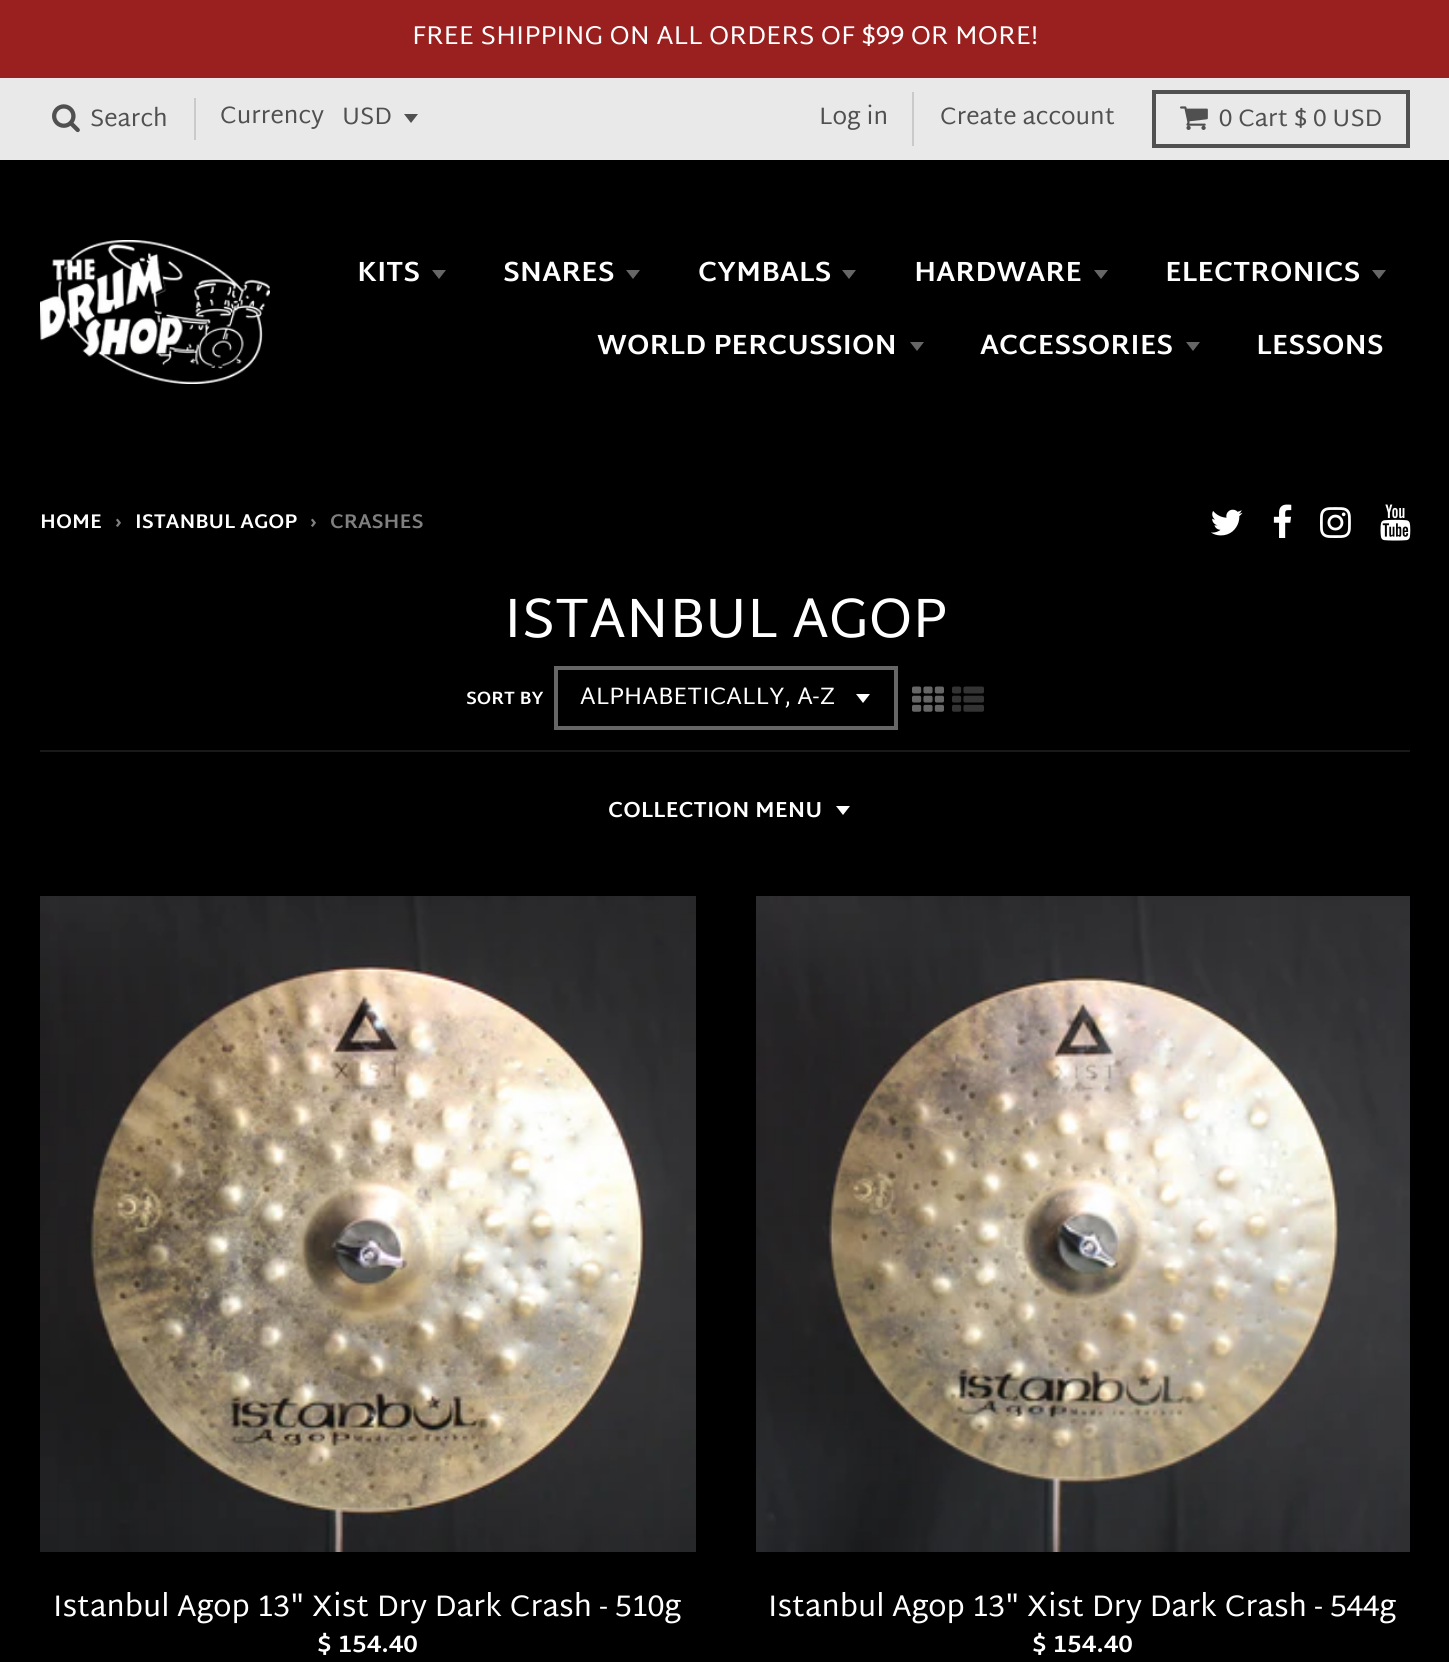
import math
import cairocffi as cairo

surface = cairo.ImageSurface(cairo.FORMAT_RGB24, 1449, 1662)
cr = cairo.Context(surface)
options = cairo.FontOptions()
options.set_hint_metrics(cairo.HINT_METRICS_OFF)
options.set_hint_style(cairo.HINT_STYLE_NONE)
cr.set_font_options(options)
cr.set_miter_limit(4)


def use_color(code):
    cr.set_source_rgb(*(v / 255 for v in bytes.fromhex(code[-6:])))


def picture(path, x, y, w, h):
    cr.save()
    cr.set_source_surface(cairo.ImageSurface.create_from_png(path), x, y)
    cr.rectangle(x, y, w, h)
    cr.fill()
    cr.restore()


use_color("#000000")
cr.paint()
use_color("#9a2020")
cr.rectangle(0, 0, 1449, 78)
cr.fill()
cr.select_font_face("Martel Sans")
cr.set_font_size(26)
use_color("#ffffff")
cr.move_to(412, 44)
cr.show_text("FREE SHIPPING ON ALL ORDERS OF $99 OR MORE!")
use_color("#e9e9e9")
cr.rectangle(0, 78, 1449, 82)
cr.fill()
picture("img1.png", 52, 104, 28, 29)
cr.set_font_size(24)
use_color("#505050")
cr.move_to(90, 126)
cr.show_text("Search")
use_color("#cacaca")
cr.rectangle(194, 98, 2, 42)
cr.fill()
use_color("#505050")
cr.move_to(220, 123)
cr.show_text("Currency")
cr.new_path()
cr.move_to(404, 114)
cr.line_to(411, 123)
cr.line_to(418, 114)
cr.close_path()
cr.fill()
cr.move_to(342, 124)
cr.show_text("USD")
use_color("#cacaca")
cr.rectangle(912, 92, 2, 54)
cr.fill()
use_color("#505050")
cr.move_to(819, 124)
cr.show_text("Log in")
cr.move_to(940, 124)
cr.show_text("Create account")
cr.rectangle(1154, 92, 254, 54)
cr.set_line_width(4)
cr.stroke()
picture("img2.png", 1180, 106, 28, 24)
cr.move_to(1219, 126)
cr.show_text("0 Cart $ 0 USD")
picture("img3.png", 40, 240, 230, 144)
cr.select_font_face("Martel Sans", cairo.FONT_SLANT_NORMAL, cairo.FONT_WEIGHT_BOLD)
cr.set_font_size(28)
use_color("#ffffff")
cr.move_to(357, 281)
cr.show_text("KITS")
use_color("#666666")
cr.new_path()
cr.move_to(432, 270)
cr.line_to(439, 279)
cr.line_to(446, 270)
cr.close_path()
cr.fill()
use_color("#ffffff")
cr.move_to(503, 281)
cr.show_text("SNARES")
use_color("#666666")
cr.new_path()
cr.move_to(626, 270)
cr.line_to(633, 279)
cr.line_to(640, 270)
cr.close_path()
cr.fill()
use_color("#ffffff")
cr.move_to(698, 281)
cr.show_text("CYMBALS")
use_color("#666666")
cr.new_path()
cr.move_to(842, 270)
cr.line_to(849, 279)
cr.line_to(856, 270)
cr.close_path()
cr.fill()
use_color("#ffffff")
cr.move_to(914, 281)
cr.show_text("HARDWARE")
use_color("#666666")
cr.new_path()
cr.move_to(1094, 270)
cr.line_to(1101, 279)
cr.line_to(1108, 270)
cr.close_path()
cr.fill()
use_color("#ffffff")
cr.move_to(1165, 281)
cr.show_text("ELECTRONICS")
use_color("#666666")
cr.new_path()
cr.move_to(1372, 270)
cr.line_to(1379, 279)
cr.line_to(1386, 270)
cr.close_path()
cr.fill()
use_color("#ffffff")
cr.move_to(597, 354)
cr.show_text("WORLD PERCUSSION")
use_color("#666666")
cr.new_path()
cr.move_to(910, 342)
cr.line_to(917, 351)
cr.line_to(924, 342)
cr.close_path()
cr.fill()
use_color("#ffffff")
cr.move_to(980, 354)
cr.show_text("ACCESSORIES")
use_color("#666666")
cr.new_path()
cr.move_to(1186, 342)
cr.line_to(1193, 351)
cr.line_to(1200, 342)
cr.close_path()
cr.fill()
use_color("#ffffff")
cr.move_to(1256, 354)
cr.show_text("LESSONS")
cr.set_font_size(20)
cr.move_to(40, 528)
cr.show_text("HOME")
use_color("#7f7f7f")
cr.move_to(115, 528)
cr.show_text("›")
use_color("#ffffff")
cr.move_to(135, 528)
cr.show_text("ISTANBUL AGOP")
use_color("#7f7f7f")
cr.move_to(310, 528)
cr.show_text("›")
cr.move_to(330, 528)
cr.show_text("CRASHES")
picture("img4.png", 1211, 509, 32, 27)
picture("img5.png", 1273, 504, 19, 34)
picture("img6.png", 1320, 507, 31, 31)
picture("img7.png", 1380, 504, 31, 37)
use_color("#191919")
cr.rectangle(40, 750, 1370, 2)
cr.fill()
cr.select_font_face("Martel Sans")
cr.set_font_size(56)
use_color("#ffffff")
cr.move_to(504, 637)
cr.show_text("ISTANBUL AGOP")
cr.select_font_face("Martel Sans", cairo.FONT_SLANT_NORMAL, cairo.FONT_WEIGHT_BOLD)
cr.set_font_size(18)
cr.move_to(466, 704)
cr.show_text("SORT BY")
cr.new_path()
cr.move_to(856, 694)
cr.line_to(863, 703)
cr.line_to(870, 694)
cr.close_path()
cr.fill()
cr.rectangle(556, 668, 340, 60)
use_color("#666666")
cr.stroke()
cr.select_font_face("Martel Sans")
cr.set_font_size(24)
use_color("#ffffff")
cr.move_to(580, 704)
cr.show_text("ALPHABETICALLY, A-Z")
picture("img8.png", 912, 686, 32, 26)
picture("img9.png", 952, 686, 32, 26)
cr.select_font_face("Martel Sans", cairo.FONT_SLANT_NORMAL, cairo.FONT_WEIGHT_BOLD)
cr.set_font_size(22)
cr.move_to(608, 817)
cr.show_text("COLLECTION MENU")
cr.new_path()
cr.move_to(836, 806)
cr.line_to(843, 815)
cr.line_to(850, 806)
cr.close_path()
cr.fill()
picture("img10.png", 40, 896, 656, 656)
cr.select_font_face("Martel Sans")
cr.set_font_size(30)
cr.move_to(53, 1616)
cr.show_text("Istanbul Agop 13\" Xist Dry Dark Crash - 510g")
cr.select_font_face("Martel Sans", cairo.FONT_SLANT_NORMAL, cairo.FONT_WEIGHT_BOLD)
cr.set_font_size(24)
cr.move_to(317, 1652)
cr.show_text("$ 154.40")
picture("img11.png", 756, 896, 654, 656)
cr.select_font_face("Martel Sans")
cr.set_font_size(30)
cr.move_to(768, 1616)
cr.show_text("Istanbul Agop 13\" Xist Dry Dark Crash - 544g")
cr.select_font_face("Martel Sans", cairo.FONT_SLANT_NORMAL, cairo.FONT_WEIGHT_BOLD)
cr.set_font_size(24)
cr.move_to(1032, 1652)
cr.show_text("$ 154.40")
surface.write_to_png("result.png")
